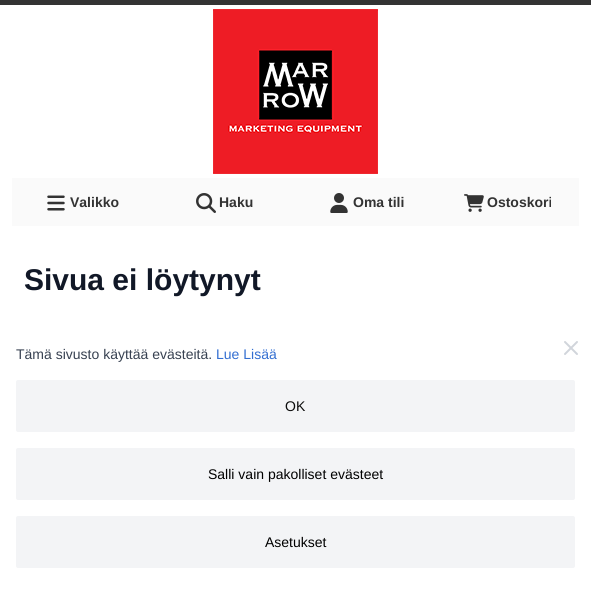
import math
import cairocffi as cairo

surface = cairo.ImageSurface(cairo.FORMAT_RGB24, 591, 592)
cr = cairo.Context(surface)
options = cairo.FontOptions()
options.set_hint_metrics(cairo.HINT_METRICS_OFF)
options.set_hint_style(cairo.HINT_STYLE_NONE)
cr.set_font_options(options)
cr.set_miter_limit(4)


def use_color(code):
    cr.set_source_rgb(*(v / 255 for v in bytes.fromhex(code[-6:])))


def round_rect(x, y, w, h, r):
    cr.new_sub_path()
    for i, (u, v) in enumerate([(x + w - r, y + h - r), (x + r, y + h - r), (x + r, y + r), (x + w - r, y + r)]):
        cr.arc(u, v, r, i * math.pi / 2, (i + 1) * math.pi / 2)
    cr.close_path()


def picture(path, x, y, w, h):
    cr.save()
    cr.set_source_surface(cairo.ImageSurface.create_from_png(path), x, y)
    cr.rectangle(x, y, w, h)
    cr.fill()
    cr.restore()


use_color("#ffffff")
cr.paint()
use_color("#333333")
cr.rectangle(0, 0, 591, 5)
cr.fill()
picture("img1.png", 213, 9, 165, 165)
use_color("#fafafa")
cr.rectangle(12, 178, 567, 48)
cr.fill()
picture("img2.png", 47, 195, 18, 16)
cr.select_font_face("Liberation Sans", cairo.FONT_SLANT_NORMAL, cairo.FONT_WEIGHT_BOLD)
cr.set_font_size(14)
use_color("#333333")
cr.move_to(70, 207)
cr.show_text("Valikko")
picture("img3.png", 196, 193, 20, 20)
cr.move_to(219, 207)
cr.show_text("Haku")
picture("img4.png", 330, 193, 18, 20)
cr.move_to(353, 207)
cr.show_text("Oma tili")
picture("img5.png", 464, 194, 20, 18)
cr.move_to(487, 207)
cr.show_text("Ostoskori")
cr.set_font_size(30)
use_color("#111827")
cr.move_to(24, 290)
cr.show_text("Sivua ei löytynyt")
cr.select_font_face("Liberation Sans")
cr.set_font_size(14)
use_color("#374151")
cr.move_to(16, 359)
cr.show_text("Tämä sivusto käyttää evästeitä.")
use_color("#326ed1")
cr.move_to(216, 359)
cr.show_text("Lue Lisää")
use_color("#f3f4f6")
round_rect(16, 380, 559, 52, 2)
cr.fill()
use_color("#0c0c0c")
cr.move_to(285, 411)
cr.show_text("OK")
use_color("#f3f4f6")
round_rect(16, 448, 559, 52, 2)
cr.fill()
use_color("#000000")
cr.move_to(208, 479)
cr.show_text("Salli vain pakolliset evästeet")
use_color("#f3f4f6")
round_rect(16, 516, 559, 52, 2)
cr.fill()
use_color("#000000")
cr.move_to(265, 547)
cr.show_text("Asetukset")
cr.new_path()
cr.move_to(565, 354)
cr.line_to(577, 342)
cr.move_to(565, 342)
cr.line_to(577, 354)
use_color("#d1d5db")
cr.set_line_cap(cairo.LINE_CAP_ROUND)
cr.set_line_join(cairo.LINE_JOIN_ROUND)
cr.stroke()
surface.write_to_png("result.png")
